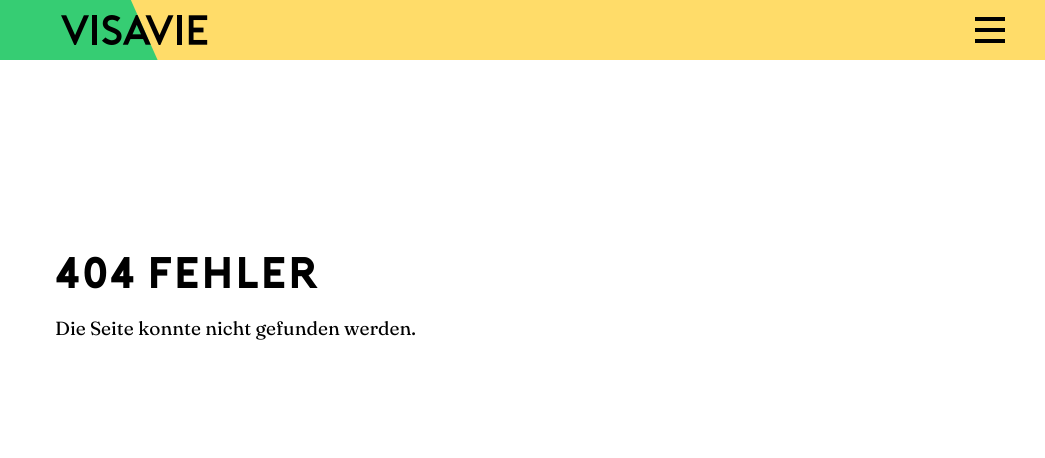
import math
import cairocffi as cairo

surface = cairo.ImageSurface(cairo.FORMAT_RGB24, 1045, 458)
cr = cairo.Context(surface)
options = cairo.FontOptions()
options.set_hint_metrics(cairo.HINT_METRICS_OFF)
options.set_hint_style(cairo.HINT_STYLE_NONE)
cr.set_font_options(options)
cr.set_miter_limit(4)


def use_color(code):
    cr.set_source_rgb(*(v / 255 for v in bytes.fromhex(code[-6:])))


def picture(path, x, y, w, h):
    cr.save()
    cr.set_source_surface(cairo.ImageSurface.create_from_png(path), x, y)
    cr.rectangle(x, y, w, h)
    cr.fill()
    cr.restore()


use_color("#ffffff")
cr.paint()
use_color("#ffdc69")
cr.rectangle(130, 0, 915, 60)
cr.fill()
picture("img1.png", 0, 0, 208, 60)
use_color("#000000")
cr.rectangle(975, 17, 30, 4)
cr.fill()
cr.rectangle(975, 28, 30, 4)
cr.fill()
cr.rectangle(975, 39, 30, 4)
cr.fill()
cr.select_font_face("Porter", cairo.FONT_SLANT_NORMAL, cairo.FONT_WEIGHT_BOLD)
cr.set_font_size(44.25)
cr.move_to(55, 288)
cr.show_text("404 Fehler")
cr.select_font_face("Fraunces")
cr.set_font_size(19)
cr.move_to(55, 335)
cr.show_text("Die Seite konnte nicht gefunden werden.")
surface.write_to_png("result.png")
